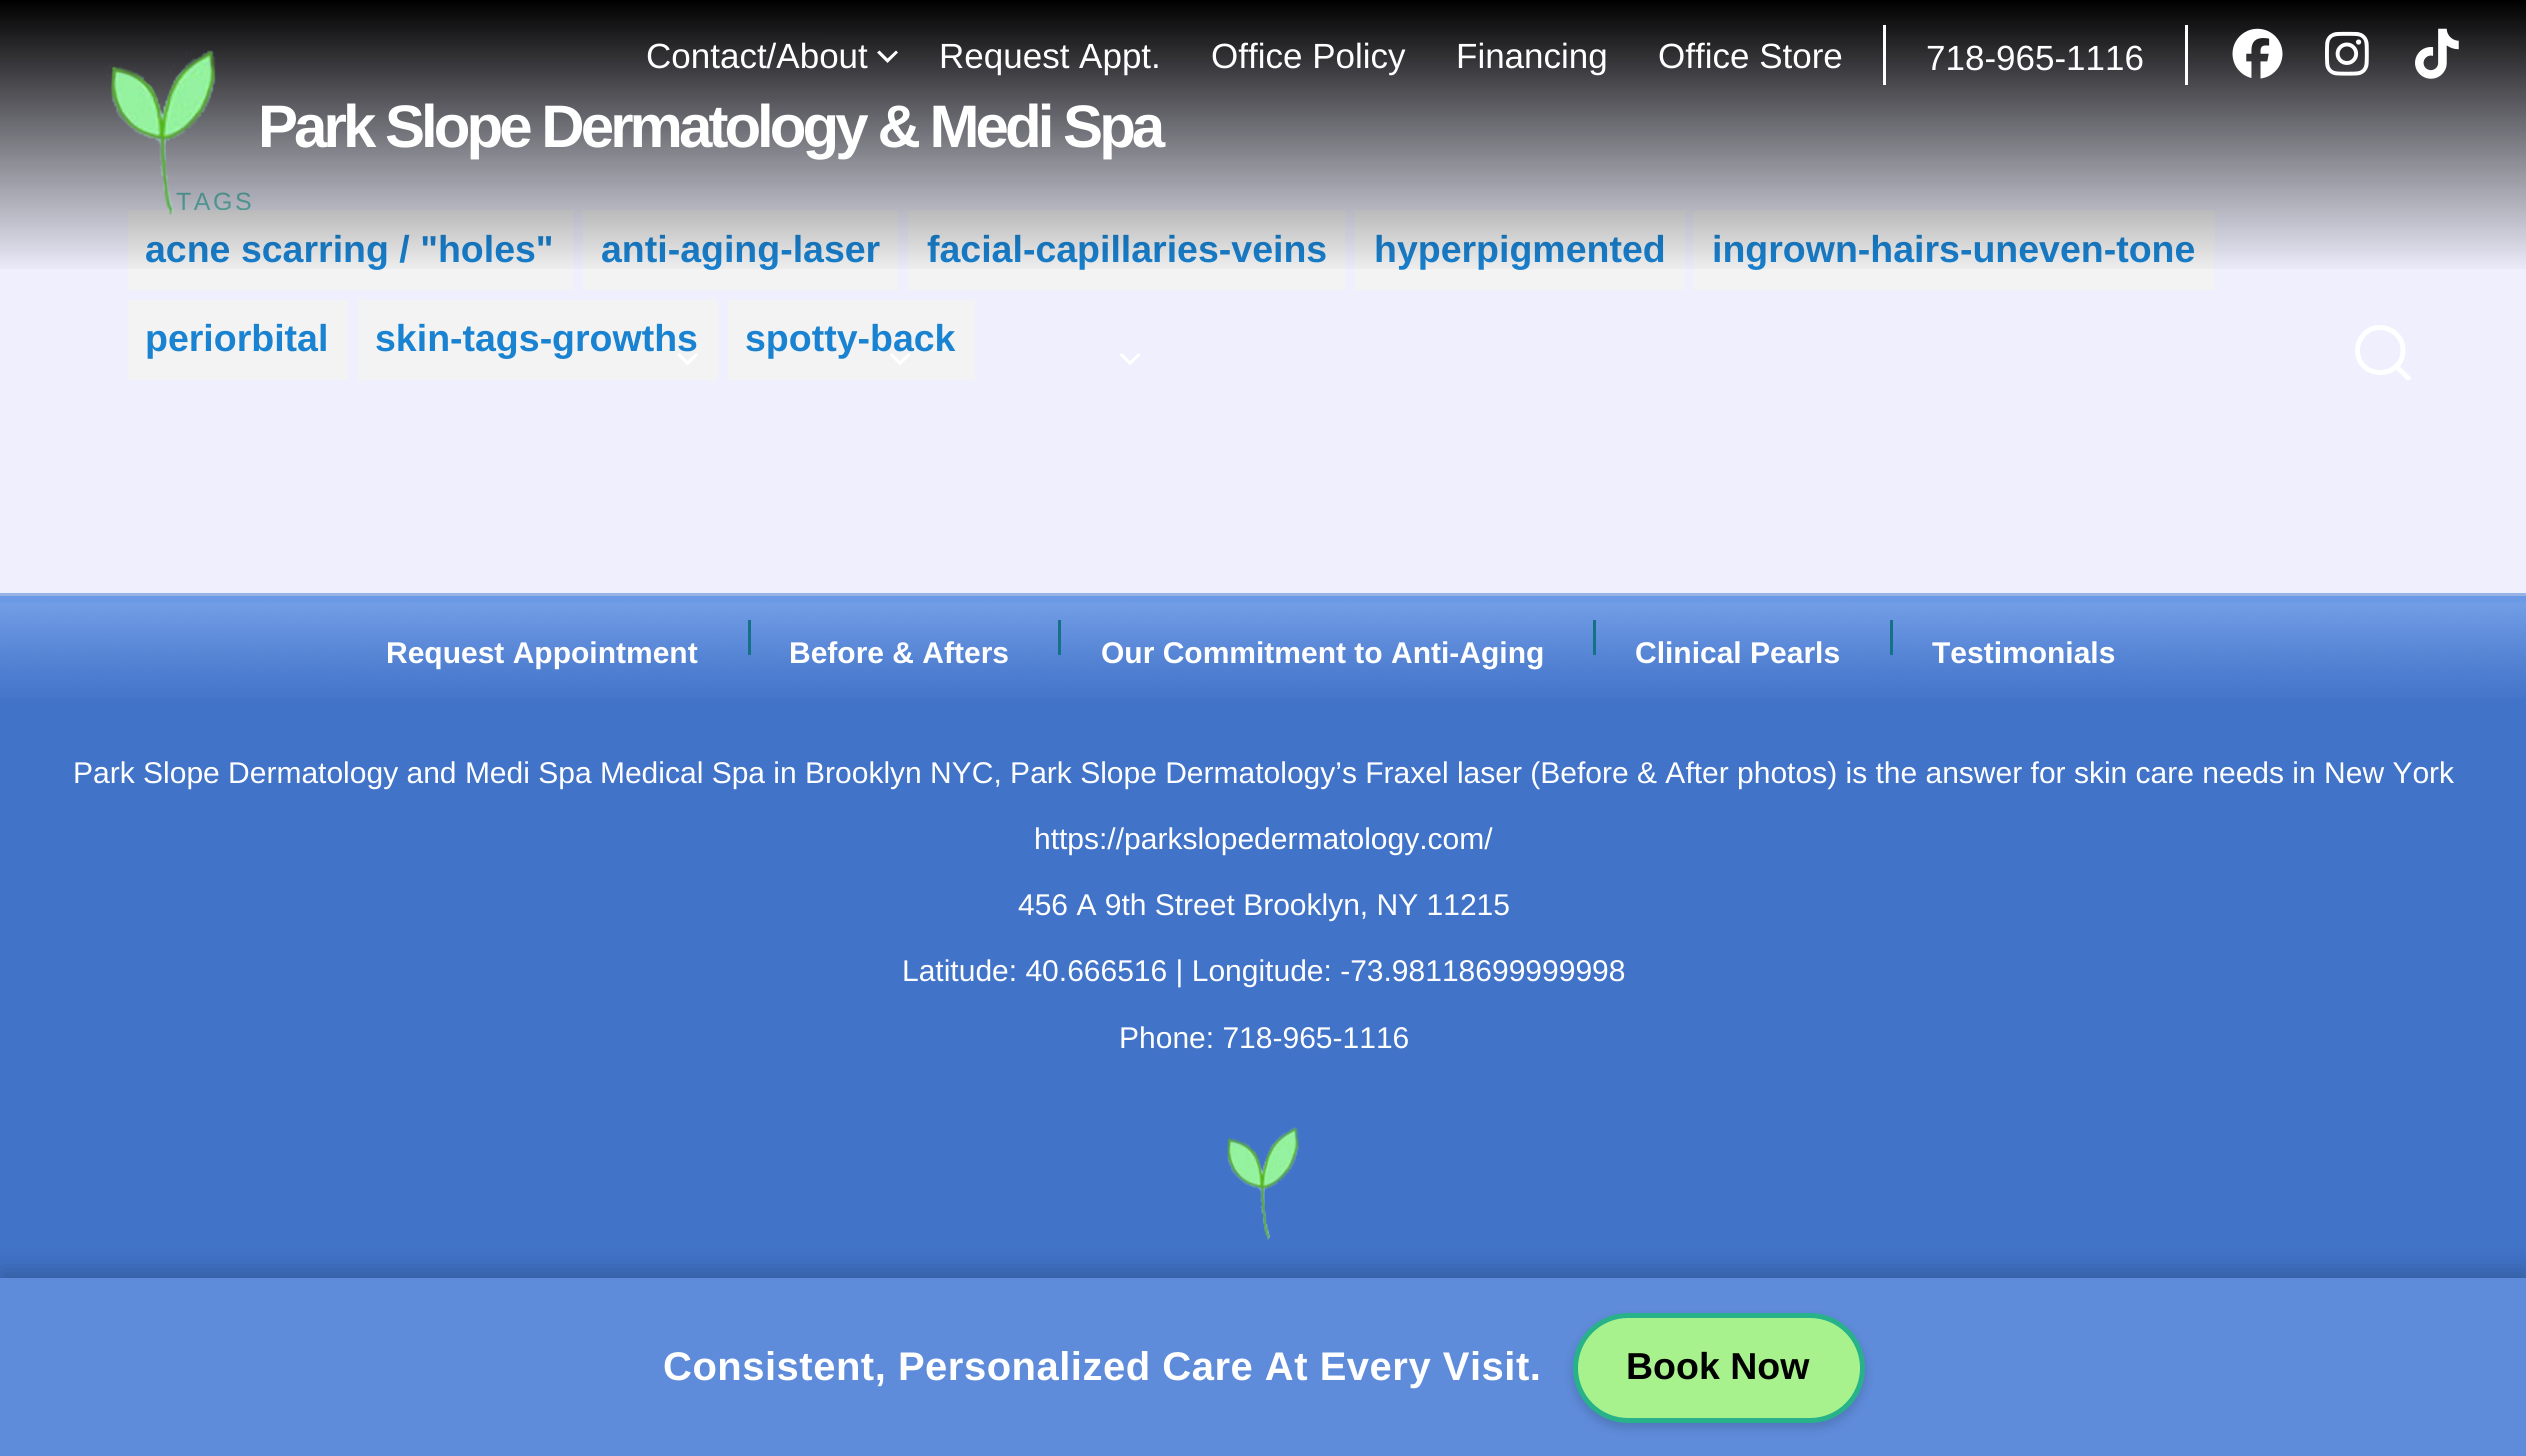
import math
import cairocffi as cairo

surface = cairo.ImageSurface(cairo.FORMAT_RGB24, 2526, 1456)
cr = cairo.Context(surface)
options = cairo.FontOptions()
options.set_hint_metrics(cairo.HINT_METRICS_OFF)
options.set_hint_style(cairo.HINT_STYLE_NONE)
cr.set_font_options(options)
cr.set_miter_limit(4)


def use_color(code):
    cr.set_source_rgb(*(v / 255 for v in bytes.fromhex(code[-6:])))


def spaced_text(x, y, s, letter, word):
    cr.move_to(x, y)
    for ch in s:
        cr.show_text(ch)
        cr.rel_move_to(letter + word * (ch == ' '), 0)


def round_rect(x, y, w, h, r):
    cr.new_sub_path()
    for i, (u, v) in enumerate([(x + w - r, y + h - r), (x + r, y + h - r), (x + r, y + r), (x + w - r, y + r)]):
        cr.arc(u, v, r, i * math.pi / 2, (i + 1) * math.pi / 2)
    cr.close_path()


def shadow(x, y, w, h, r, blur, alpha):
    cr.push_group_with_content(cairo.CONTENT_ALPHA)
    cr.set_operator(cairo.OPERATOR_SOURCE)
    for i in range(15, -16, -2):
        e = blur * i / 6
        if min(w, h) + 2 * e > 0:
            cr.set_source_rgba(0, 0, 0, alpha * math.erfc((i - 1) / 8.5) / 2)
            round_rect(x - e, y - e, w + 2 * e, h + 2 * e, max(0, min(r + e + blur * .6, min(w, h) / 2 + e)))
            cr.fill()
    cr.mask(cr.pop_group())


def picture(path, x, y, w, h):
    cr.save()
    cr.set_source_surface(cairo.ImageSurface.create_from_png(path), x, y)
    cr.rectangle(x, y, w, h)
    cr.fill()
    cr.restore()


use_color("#efeffe")
cr.paint()
use_color("#f3f3f3")
cr.rectangle(158, 33, 670, 3)
cr.fill()
cr.select_font_face("Liberation Sans")
cr.set_font_size(25)
use_color("#6ac8c0")
spaced_text(176, 210, "TAGS", 2.5, 0)
use_color("#f3f3f3")
cr.rectangle(128, 210, 445, 80)
cr.fill()
cr.select_font_face("Liberation Sans", cairo.FONT_SLANT_NORMAL, cairo.FONT_WEIGHT_BOLD)
cr.set_font_size(37.5)
use_color("#1982d1")
cr.move_to(145, 262)
cr.show_text("acne scarring / \"holes\"")
use_color("#f3f3f3")
cr.rectangle(583, 210, 315, 80)
cr.fill()
use_color("#1982d1")
cr.move_to(601, 262)
cr.show_text("anti-aging-laser")
use_color("#f3f3f3")
cr.rectangle(908, 210, 437, 80)
cr.fill()
use_color("#1982d1")
cr.move_to(927, 262)
cr.show_text("facial-capillaries-veins")
use_color("#f3f3f3")
cr.rectangle(1355, 210, 330, 80)
cr.fill()
use_color("#1982d1")
cr.move_to(1374, 262)
cr.show_text("hyperpigmented")
use_color("#f3f3f3")
cr.rectangle(1693, 210, 522, 80)
cr.fill()
use_color("#1982d1")
cr.move_to(1712, 262)
cr.show_text("ingrown-hairs-uneven-tone")
gradient = cairo.LinearGradient(1264, 275, 1264, 0)
gradient.add_color_stop_rgba(0, 0, 0, 0, 0)
gradient.add_color_stop_rgba(1, 0, 0, 0, 1)
cr.set_source(gradient)
cr.rectangle(0, 0, 2526, 269)
cr.fill()
cr.select_font_face("Liberation Sans")
cr.set_font_size(35)
use_color("#ffffff")
cr.move_to(646, 68)
cr.show_text("Contact/About")
cr.new_path()
cr.move_to(896, 50.5)
cr.line_to(898, 52.5)
cr.line_to(887.5, 63)
cr.line_to(877, 52.5)
cr.line_to(879.5, 50.5)
cr.line_to(887.5, 58.5)
cr.close_path()
cr.fill()
cr.move_to(939, 68)
cr.show_text("Request Appt.")
cr.move_to(1211, 68)
cr.show_text("Office Policy")
cr.move_to(1456, 68)
cr.show_text("Financing")
cr.move_to(1658, 68)
cr.show_text("Office Store")
cr.rectangle(1883, 25, 3, 60)
cr.fill()
cr.move_to(1926, 70)
cr.show_text("718-965-1116")
cr.rectangle(2185, 25, 3, 60)
cr.fill()
picture("img1.png", 2232, 28, 51, 51)
picture("img2.png", 2325, 31, 44, 45)
picture("img3.png", 2415, 28, 44, 51)
use_color("#f3f3f3")
cr.rectangle(358, 300, 360, 80)
cr.fill()
cr.select_font_face("Liberation Sans", cairo.FONT_SLANT_NORMAL, cairo.FONT_WEIGHT_BOLD)
cr.set_font_size(37.5)
use_color("#1982d1")
cr.move_to(375, 351)
cr.show_text("skin-tags-growths")
use_color("#ffffff")
cr.new_path()
cr.move_to(696, 353)
cr.line_to(698, 355)
cr.line_to(687.5, 365.5)
cr.line_to(677, 355)
cr.line_to(679.5, 353)
cr.line_to(687.5, 361)
cr.close_path()
cr.fill()
use_color("#f3f3f3")
cr.rectangle(728, 300, 247, 80)
cr.fill()
use_color("#1982d1")
cr.move_to(745, 351)
cr.show_text("spotty-back")
use_color("#ffffff")
cr.new_path()
cr.move_to(908.5, 353)
cr.line_to(910.5, 355)
cr.line_to(900, 365.5)
cr.line_to(889.5, 355)
cr.line_to(892, 353)
cr.line_to(900, 361)
cr.close_path()
cr.fill()
cr.new_path()
cr.move_to(1138.5, 353)
cr.line_to(1140.5, 355)
cr.line_to(1130, 365.5)
cr.line_to(1119.5, 355)
cr.line_to(1122, 353)
cr.line_to(1130, 361)
cr.close_path()
cr.fill()
cr.new_path()
cr.move_to(2403, 350)
cr.curve_to(2403, 380, 2357.5, 380, 2357.5, 350)
cr.curve_to(2357.5, 345.5, 2359, 341, 2361.5, 337.5)
cr.curve_to(2374, 318.5, 2403, 328.5, 2403, 350)
cr.close_path()
cr.set_line_width(5)
cr.set_line_cap(cairo.LINE_CAP_ROUND)
cr.set_line_join(cairo.LINE_JOIN_ROUND)
cr.stroke()
cr.save()
cr.rectangle(2355, 325, 58, 55)
cr.clip()
cr.new_path()
cr.move_to(2408.5, 378.5)
cr.line_to(2396, 366)
cr.stroke()
cr.restore()
picture("img4.png", 106, 49, 111, 166)
cr.set_font_size(60)
spaced_text(258, 147, "Park Slope Dermatology & Medi Spa", -3.95, 0)
use_color("#f3f3f3")
cr.rectangle(128, 300, 220, 80)
cr.fill()
cr.set_font_size(37.5)
use_color("#1982d1")
cr.move_to(145, 351)
cr.show_text("periorbital")
use_color("#97b3e5")
cr.rectangle(0, 593, 2526, 3)
cr.fill()
picture("img5.png", 0, 596, 2526, 102)
cr.set_font_size(30)
use_color("#ffffff")
cr.move_to(386, 663)
cr.show_text("Request Appointment")
use_color("#157186")
cr.rectangle(748, 620, 3, 35)
cr.fill()
use_color("#ffffff")
cr.move_to(789, 663)
cr.show_text("Before & Afters")
use_color("#157186")
cr.rectangle(1058, 620, 3, 35)
cr.fill()
use_color("#ffffff")
cr.move_to(1101, 663)
cr.show_text("Our Commitment to Anti-Aging")
use_color("#157186")
cr.rectangle(1593, 620, 3, 35)
cr.fill()
use_color("#ffffff")
cr.move_to(1635, 663)
cr.show_text("Clinical Pearls")
use_color("#157186")
cr.rectangle(1890, 620, 3, 35)
cr.fill()
use_color("#ffffff")
cr.move_to(1932, 663)
cr.show_text("Testimonials")
use_color("#4173c8")
cr.rectangle(0, 698, 2526, 580)
cr.fill()
cr.select_font_face("Liberation Sans")
use_color("#ffffff")
cr.move_to(73, 783)
cr.show_text("Park Slope Dermatology and Medi Spa Medical Spa in Brooklyn NYC, Park Slope Dermatology’s Fraxel laser (Before & After photos) is the answer for skin care needs in New York")
cr.move_to(1034, 849)
cr.show_text("https://parkslopedermatology.com/")
cr.move_to(1018, 915)
cr.show_text("456 A 9th Street Brooklyn, NY 11215")
cr.move_to(902, 981)
cr.show_text("Latitude: 40.666516 | Longitude: -73.98118699999998")
cr.move_to(1119, 1048)
cr.show_text("Phone: 718-965-1116")
picture("img6.png", 1227, 1127, 72, 113)
use_color("#000000")
shadow(0, 1270, 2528, 180, 0, 12.5, 0.2)
use_color("#5e8bda")
cr.rectangle(0, 1278, 2526, 178)
cr.fill()
cr.select_font_face("Liberation Sans", cairo.FONT_SLANT_NORMAL, cairo.FONT_WEIGHT_BOLD)
cr.set_font_size(40)
use_color("#ffffff")
spaced_text(663, 1380, "Consistent, Personalized Care At Every Visit.", 0.5, 0)
use_color("#000000")
shadow(1573, 1318, 292, 110, 55, 5, 0.15)
use_color("#a8f28e")
round_rect(1575.5, 1315.5, 287, 105, 52.5)
cr.fill_preserve()
use_color("#28b28a")
cr.set_line_cap(cairo.LINE_CAP_BUTT)
cr.set_line_join(cairo.LINE_JOIN_MITER)
cr.stroke()
cr.set_font_size(37.5)
use_color("#000000")
cr.move_to(1626, 1379)
cr.show_text("Book Now")
surface.write_to_png("result.png")
